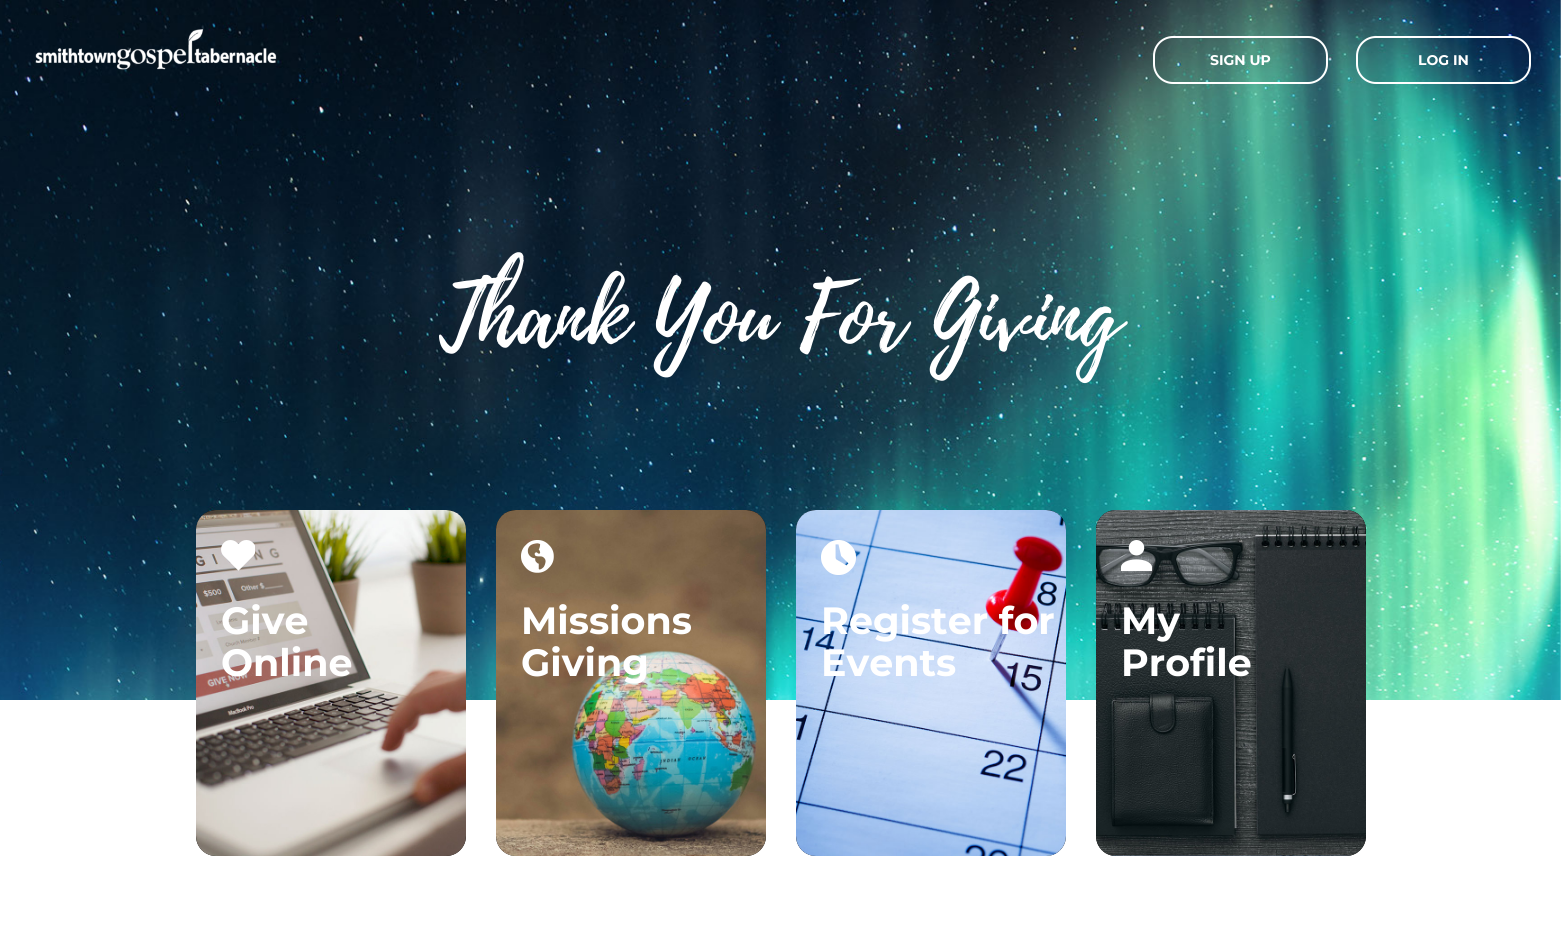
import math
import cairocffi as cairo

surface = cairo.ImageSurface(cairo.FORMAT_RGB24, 1561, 944)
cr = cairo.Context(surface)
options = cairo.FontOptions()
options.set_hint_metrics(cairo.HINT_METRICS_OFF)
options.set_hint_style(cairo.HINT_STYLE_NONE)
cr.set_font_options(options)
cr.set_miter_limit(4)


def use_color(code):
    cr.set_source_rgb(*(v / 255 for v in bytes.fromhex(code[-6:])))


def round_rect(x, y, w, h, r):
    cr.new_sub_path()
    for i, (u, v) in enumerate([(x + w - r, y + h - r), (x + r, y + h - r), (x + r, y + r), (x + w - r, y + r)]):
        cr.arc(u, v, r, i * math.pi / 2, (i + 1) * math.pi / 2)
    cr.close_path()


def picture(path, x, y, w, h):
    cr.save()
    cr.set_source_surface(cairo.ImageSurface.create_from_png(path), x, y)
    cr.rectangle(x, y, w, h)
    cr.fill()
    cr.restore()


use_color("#ffffff")
cr.paint()
picture("img1.png", 0, 0, 1561, 700)
picture("img2.png", 35, 29, 242, 41)
round_rect(1154, 37, 173, 46, 19)
use_color("#ffffff")
cr.stroke()
cr.select_font_face("Montserrat", cairo.FONT_SLANT_NORMAL, cairo.FONT_WEIGHT_BOLD)
cr.set_font_size(14)
cr.move_to(1210, 65)
cr.show_text("SIGN UP")
round_rect(1357, 37, 173, 46, 19)
cr.stroke()
cr.move_to(1418, 65)
cr.show_text("LOG IN")
cr.select_font_face("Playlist")
cr.set_font_size(90)
cr.move_to(439, 344)
cr.show_text("Thank You For Giving")
use_color("#000000")
round_rect(196, 510, 270, 346, 20)
cr.fill()
picture("img3.png", 196, 510, 270, 346)
picture("img4.png", 221, 540, 34, 31)
cr.select_font_face("Montserrat", cairo.FONT_SLANT_NORMAL, cairo.FONT_WEIGHT_BOLD)
cr.set_font_size(38)
use_color("#ffffff")
cr.move_to(221, 634)
cr.show_text("Give")
cr.move_to(221, 676)
cr.show_text("Online")
use_color("#000000")
round_rect(496, 510, 270, 346, 20)
cr.fill()
picture("img5.png", 496, 510, 270, 346)
picture("img6.png", 521, 540, 33, 33)
use_color("#ffffff")
cr.move_to(521, 634)
cr.show_text("Missions")
cr.move_to(521, 676)
cr.show_text("Giving")
use_color("#000000")
round_rect(796, 510, 270, 346, 20)
cr.fill()
picture("img7.png", 796, 510, 270, 346)
picture("img8.png", 821, 540, 35, 35)
use_color("#ffffff")
cr.move_to(821, 634)
cr.show_text("Register for")
cr.move_to(821, 676)
cr.show_text("Events")
use_color("#000000")
round_rect(1096, 510, 270, 346, 20)
cr.fill()
picture("img9.png", 1096, 510, 270, 346)
picture("img10.png", 1121, 540, 31, 31)
use_color("#ffffff")
cr.move_to(1121, 634)
cr.show_text("My")
cr.move_to(1121, 676)
cr.show_text("Profile")
surface.write_to_png("result.png")
